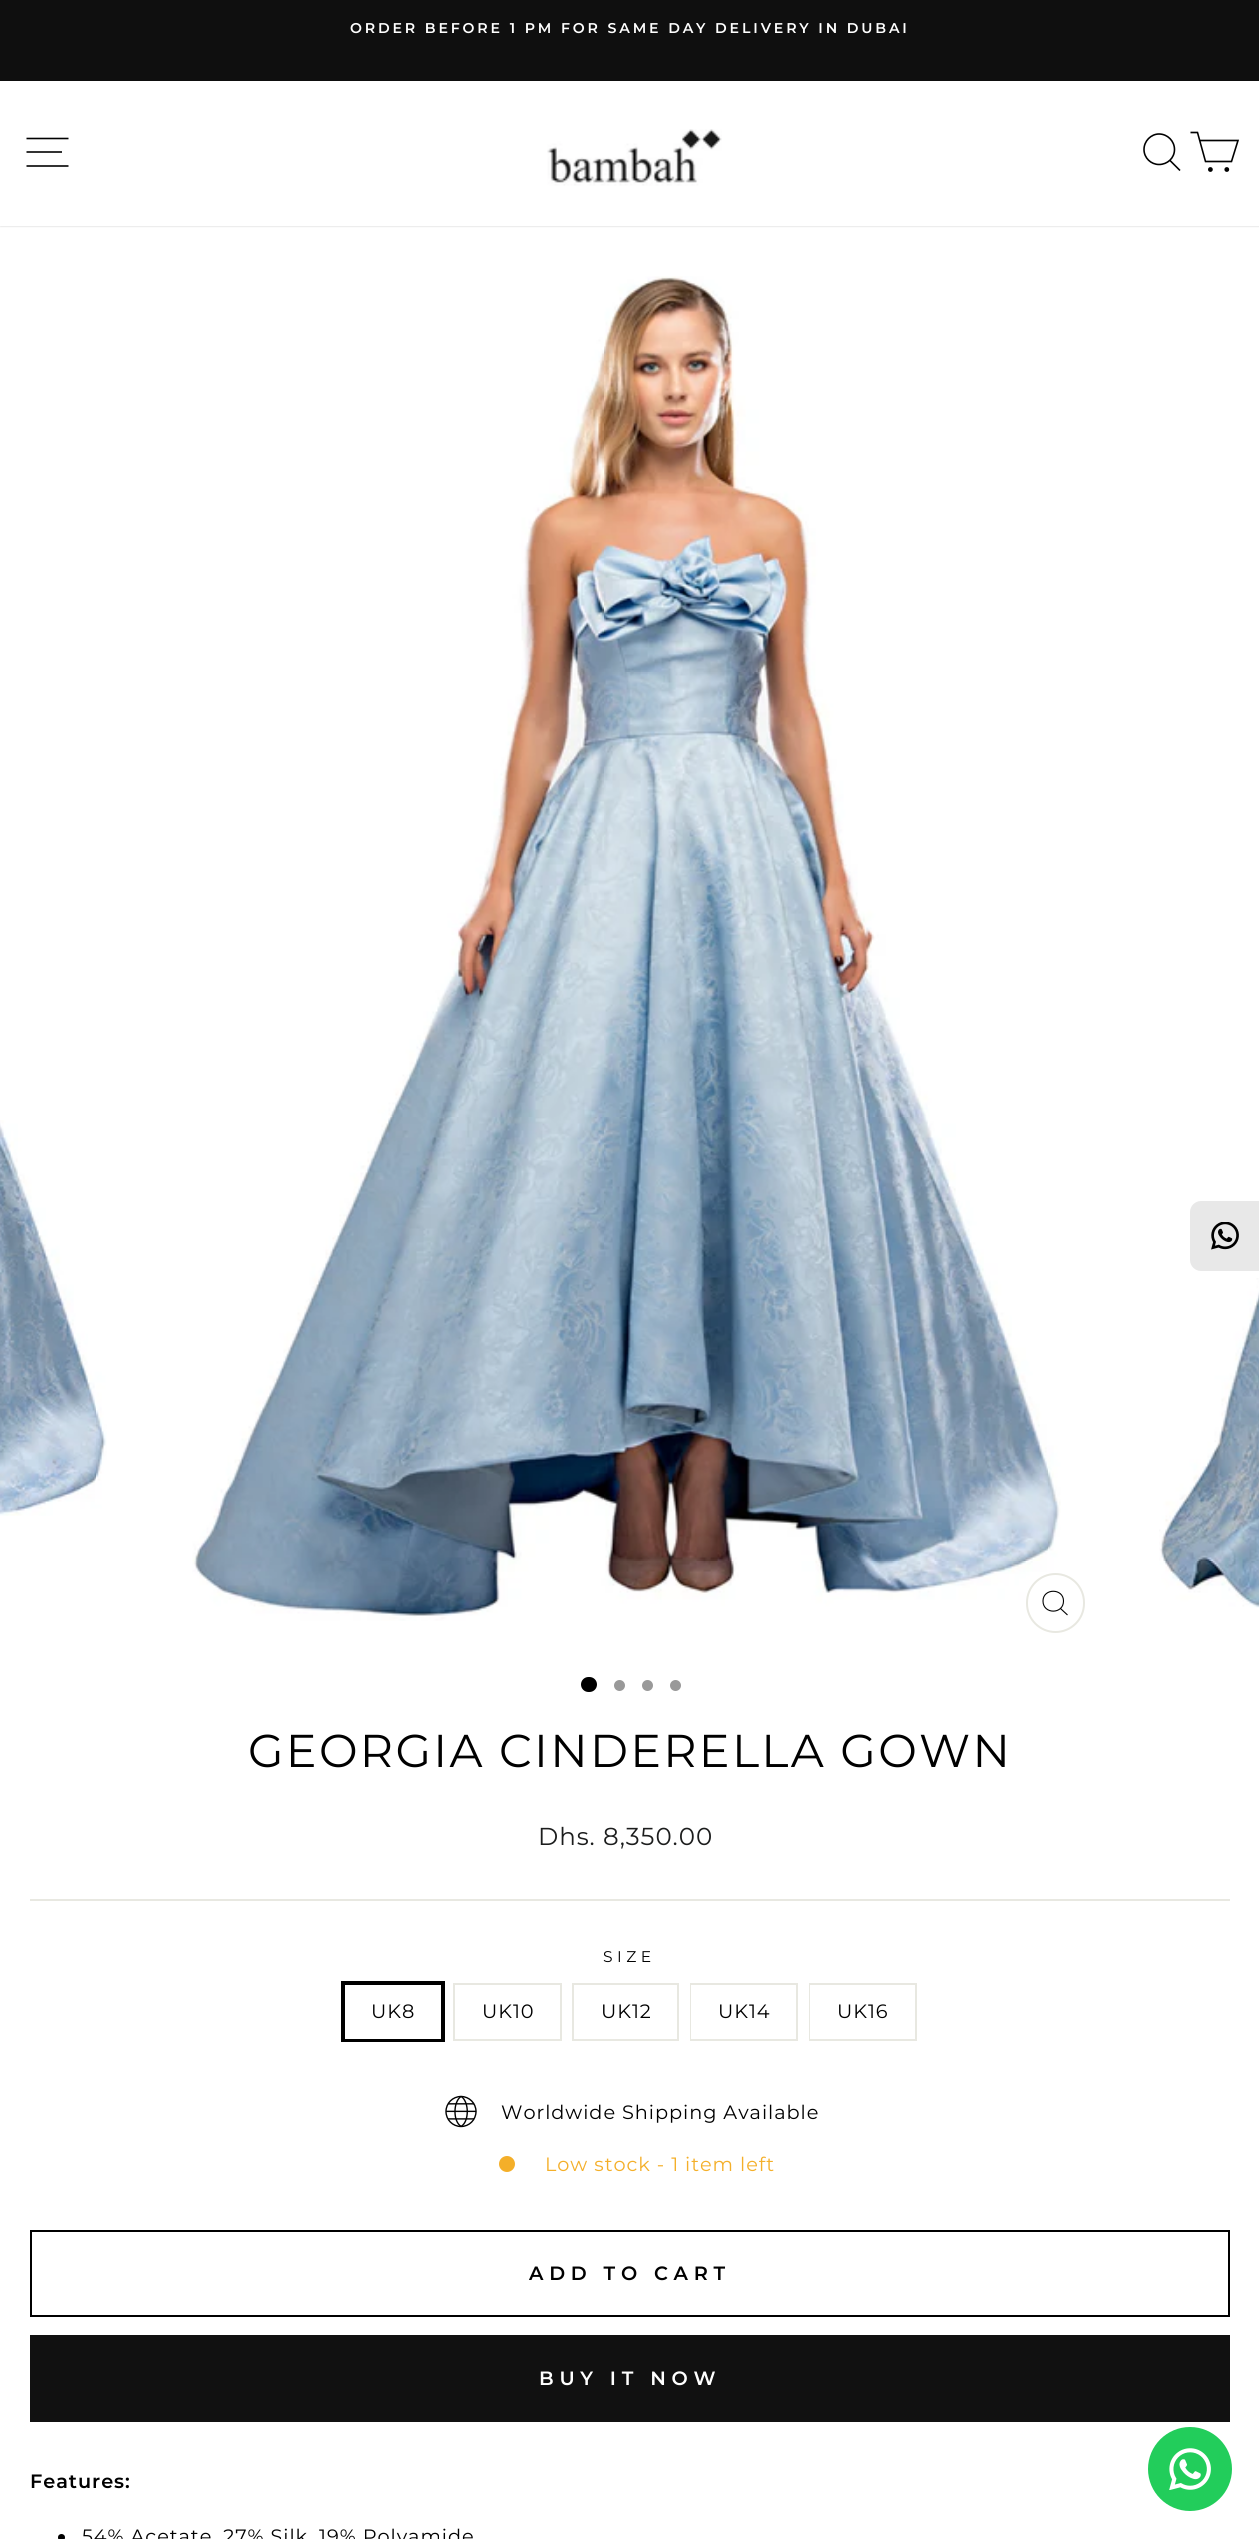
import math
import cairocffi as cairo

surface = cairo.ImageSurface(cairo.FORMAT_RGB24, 1259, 2539)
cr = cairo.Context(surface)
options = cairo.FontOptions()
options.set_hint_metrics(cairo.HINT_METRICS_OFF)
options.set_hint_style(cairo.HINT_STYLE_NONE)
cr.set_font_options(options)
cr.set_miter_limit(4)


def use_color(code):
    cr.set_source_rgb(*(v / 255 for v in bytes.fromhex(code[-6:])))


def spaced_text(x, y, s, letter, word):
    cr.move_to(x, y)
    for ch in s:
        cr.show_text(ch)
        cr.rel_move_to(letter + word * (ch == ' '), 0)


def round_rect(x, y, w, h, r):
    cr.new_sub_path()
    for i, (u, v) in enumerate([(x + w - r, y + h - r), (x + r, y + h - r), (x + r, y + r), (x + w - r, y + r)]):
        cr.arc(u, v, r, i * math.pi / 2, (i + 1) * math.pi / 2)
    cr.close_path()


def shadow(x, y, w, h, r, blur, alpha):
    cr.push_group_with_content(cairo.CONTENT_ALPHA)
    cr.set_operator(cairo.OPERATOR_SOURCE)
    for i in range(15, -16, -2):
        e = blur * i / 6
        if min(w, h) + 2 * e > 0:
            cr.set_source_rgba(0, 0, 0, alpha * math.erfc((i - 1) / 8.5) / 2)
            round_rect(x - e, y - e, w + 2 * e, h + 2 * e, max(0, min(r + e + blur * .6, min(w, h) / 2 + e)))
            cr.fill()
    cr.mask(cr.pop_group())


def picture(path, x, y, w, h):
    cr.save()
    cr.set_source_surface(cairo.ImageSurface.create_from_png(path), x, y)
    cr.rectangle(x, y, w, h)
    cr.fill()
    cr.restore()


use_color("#ffffff")
cr.paint()
use_color("#0f0f0f")
cr.rectangle(0, 0, 1259, 81)
cr.fill()
cr.select_font_face("Montserrat SemiBold")
cr.set_font_size(14.15)
use_color("#ffffff")
spaced_text(350, 33, "ORDER BEFORE 1 PM FOR SAME DAY DELIVERY IN DUBAI", 2.85, 0)
use_color("#000000")
shadow(0, 81, 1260, 145, 0, 1, 0.2)
use_color("#ffffff")
cr.rectangle(0, 81, 1259, 145)
cr.fill()
cr.new_path()
cr.move_to(26.5, 138.5)
cr.line_to(68.5, 138.5)
cr.move_to(26.5, 152)
cr.line_to(62, 152)
cr.move_to(26.5, 166)
cr.line_to(68.5, 166)
use_color("#000000")
cr.set_line_width(1.6)
cr.stroke()
picture("img1.png", 547, 129, 175, 57)
cr.new_path()
cr.move_to(1174.5, 149.5)
cr.curve_to(1174.5, 158, 1167.5, 164.5, 1159, 164.5)
cr.curve_to(1151, 164.5, 1144, 158, 1144, 149.5)
cr.curve_to(1144, 141, 1151, 134, 1159, 134)
cr.curve_to(1167.5, 134, 1174.5, 141, 1174.5, 149.5)
cr.close_path()
cr.move_to(1180, 170.5)
cr.line_to(1170, 160.5)
cr.stroke()
cr.new_path()
cr.move_to(1199.5, 140.5)
cr.line_to(1238, 140.5)
cr.line_to(1231.5, 161.5)
cr.line_to(1205.5, 161.5)
cr.line_to(1197.5, 132.5)
cr.line_to(1190.5, 132.5)
cr.stroke()
cr.arc(1210.4, 169.5, 1.6, 0, 2 * math.pi)
cr.fill_preserve()
cr.stroke()
cr.arc(1226.8, 169.5, 1.6, 0, 2 * math.pi)
cr.fill_preserve()
cr.stroke()
picture("img2.png", 0, 1120, 107, 396)
picture("img3.png", 192, 276, 869, 1345)
round_rect(1027, 1574, 57, 58, 28.5)
use_color("#e8e8e1")
cr.set_line_width(2)
cr.stroke()
cr.new_path()
cr.move_to(1063.5, 1601)
cr.curve_to(1063.5, 1614.5, 1043, 1614.5, 1043, 1601)
cr.curve_to(1043, 1588, 1063.5, 1588, 1063.5, 1601)
cr.close_path()
cr.move_to(1067.5, 1615)
cr.line_to(1060.5, 1608.5)
use_color("#000000")
cr.set_line_width(1.1)
cr.stroke()
picture("img4.png", 1159, 1278, 100, 330)
round_rect(581, 1677, 16, 15, 7.5)
cr.fill()
use_color("#999999")
cr.arc(619.5, 1685.5, 5.5, 0, 2 * math.pi)
cr.fill()
cr.arc(647.5, 1685.5, 5.5, 0, 2 * math.pi)
cr.fill()
cr.arc(675.5, 1685.5, 5.5, 0, 2 * math.pi)
cr.fill()
cr.select_font_face("Montserrat")
cr.set_font_size(46)
use_color("#000000")
spaced_text(248, 1767, "GEORGIA CINDERELLA GOWN", 2.3, 0)
cr.set_font_size(24.5)
use_color("#1c1d1d")
spaced_text(538, 1845, "Dhs. 8,350.00", 0.95, 0)
use_color("#e8e8e1")
cr.rectangle(30, 1899, 1200, 2)
cr.fill()
cr.set_font_size(15.5)
use_color("#000000")
spaced_text(603, 1962, "SIZE", 4.5, 0)
cr.rectangle(343, 1983, 100, 57)
cr.set_line_width(4)
cr.stroke()
use_color("#ffffff")
cr.rectangle(345, 2038, 96, 1)
cr.fill()
cr.set_font_size(19.3)
use_color("#000000")
spaced_text(371, 2018, "UK8", 0.95, 0)
cr.rectangle(454, 1984, 107, 56)
use_color("#e8e8e1")
cr.set_line_width(2)
cr.stroke()
use_color("#000000")
spaced_text(482, 2018, "UK10", 0.95, 0)
cr.rectangle(573, 1984, 105, 56)
use_color("#e8e8e1")
cr.stroke()
use_color("#000000")
spaced_text(601, 2018, "UK12", 0.95, 0)
cr.rectangle(691, 1984, 106, 56)
use_color("#e8e8e1")
cr.stroke()
use_color("#ffffff")
cr.rectangle(691, 1985, 1, 54)
cr.fill()
use_color("#000000")
spaced_text(718, 2018, "UK14", 0.95, 0)
cr.rectangle(810, 1984, 106, 56)
use_color("#e8e8e1")
cr.stroke()
use_color("#ffffff")
cr.rectangle(810, 1985, 1, 54)
cr.fill()
use_color("#000000")
spaced_text(837, 2018, "UK16", 0.95, 0)
picture("img5.png", 445, 2095, 32, 33)
spaced_text(501, 2119, "Worldwide Shipping Available", 0.95, 0)
use_color("#f4af29")
cr.new_path()
cr.arc(507, 2164, 8, 0, 2 * math.pi)
cr.fill()
spaced_text(545, 2171, "Low stock - 1 item left", 0.95, 0)
cr.rectangle(31, 2231, 1198, 85)
use_color("#000000")
cr.stroke()
cr.select_font_face("Montserrat SemiBold")
cr.set_font_size(19.25)
spaced_text(529, 2280, "ADD TO CART", 5.75, 0)
use_color("#111111")
cr.rectangle(30, 2335, 1200, 87)
cr.fill()
use_color("#ffffff")
spaced_text(539, 2385, "BUY IT NOW", 5.75, 0)
cr.set_font_size(19.3)
use_color("#000000")
spaced_text(30, 2488, "Features:", 0.95, 0)
cr.new_path()
cr.arc(61.5, 2537.5, 3.5, 0, 2 * math.pi)
cr.fill()
cr.select_font_face("Montserrat")
spaced_text(82, 2543, "54% Acetate, 27% Silk, 19% Polyamide", 0.95, 0)
use_color("#e8e8e8")
cr.new_path()
cr.move_to(1201, 1201)
cr.line_to(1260, 1201)
cr.line_to(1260, 1271)
cr.line_to(1201, 1271)
cr.curve_to(1195, 1271, 1190, 1266, 1190, 1260)
cr.line_to(1190, 1212)
cr.curve_to(1190, 1206, 1195, 1201, 1201, 1201)
cr.close_path()
cr.fill()
picture("img6.png", 1211, 1222, 28, 28)
use_color("#22cd5b")
cr.arc(1190, 2469, 42, 0, 2 * math.pi)
cr.fill()
picture("img7.png", 1169, 2448, 42, 42)
surface.write_to_png("result.png")
